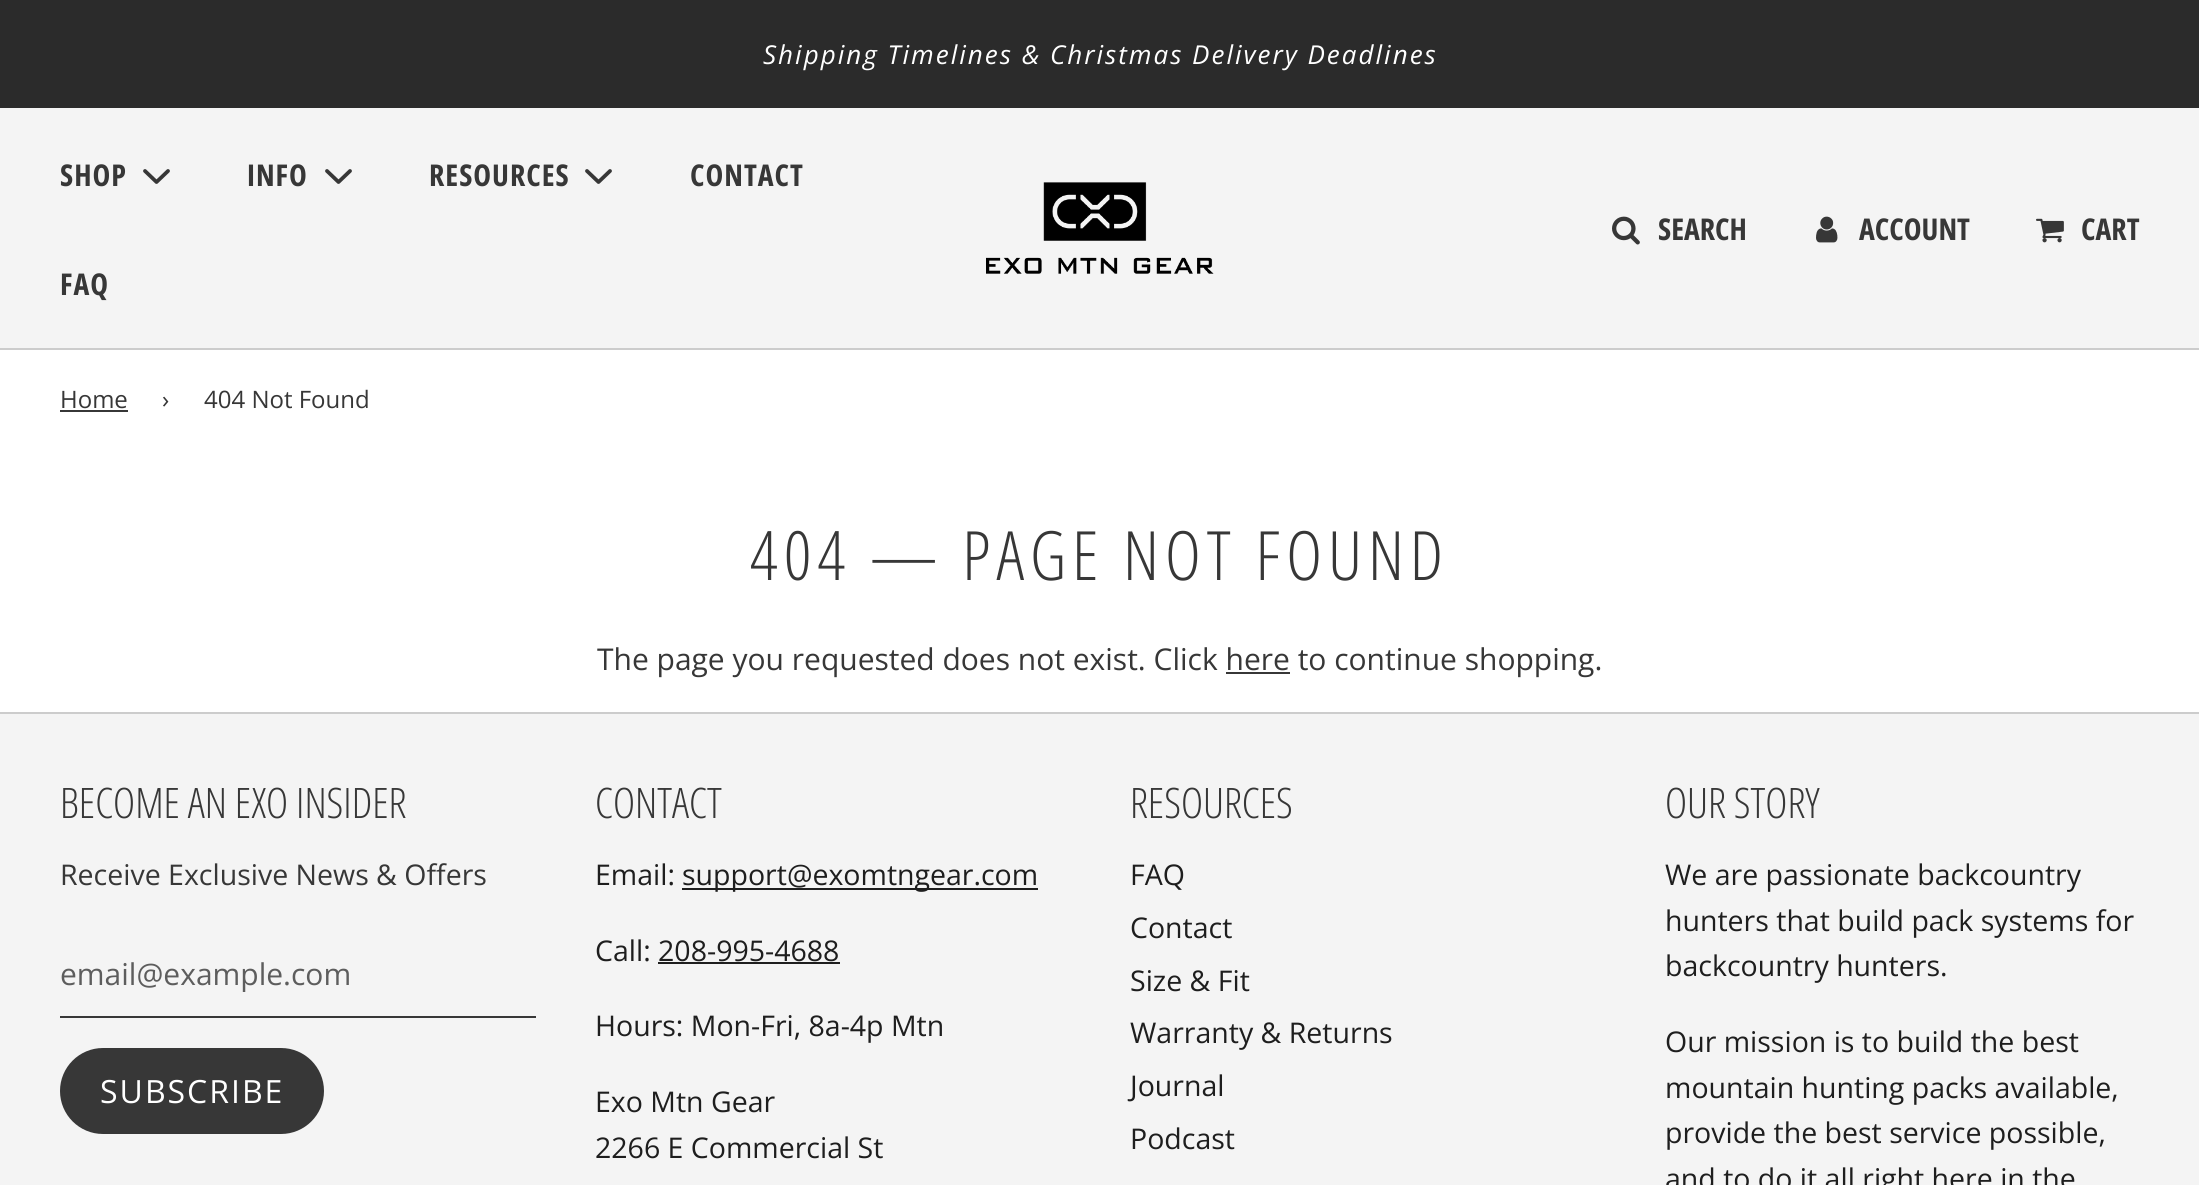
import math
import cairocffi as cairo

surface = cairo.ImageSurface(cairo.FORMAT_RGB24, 2199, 1185)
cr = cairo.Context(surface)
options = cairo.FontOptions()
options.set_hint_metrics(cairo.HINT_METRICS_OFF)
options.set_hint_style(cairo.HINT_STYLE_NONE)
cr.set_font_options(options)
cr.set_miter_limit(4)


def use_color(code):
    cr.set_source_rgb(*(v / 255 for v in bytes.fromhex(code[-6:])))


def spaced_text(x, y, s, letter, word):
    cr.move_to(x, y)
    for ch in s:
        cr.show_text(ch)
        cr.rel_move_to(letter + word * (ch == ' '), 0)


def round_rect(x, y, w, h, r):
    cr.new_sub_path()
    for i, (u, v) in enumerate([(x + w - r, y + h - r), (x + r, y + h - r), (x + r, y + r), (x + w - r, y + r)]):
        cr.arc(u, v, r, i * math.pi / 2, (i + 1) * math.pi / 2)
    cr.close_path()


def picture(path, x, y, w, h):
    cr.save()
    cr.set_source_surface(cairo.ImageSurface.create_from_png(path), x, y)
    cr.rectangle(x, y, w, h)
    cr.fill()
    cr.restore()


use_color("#ffffff")
cr.paint()
use_color("#2b2b2b")
cr.rectangle(0, 0, 2199, 108)
cr.fill()
cr.select_font_face("Open Sans", cairo.FONT_SLANT_ITALIC)
cr.set_font_size(26)
use_color("#ffffff")
spaced_text(763, 64, "Shipping Timelines & Christmas Delivery Deadlines", 2, 0)
use_color("#f4f4f4")
cr.rectangle(0, 108, 2199, 240)
cr.fill()
use_color("#cccccc")
cr.rectangle(0, 348, 2199, 2)
cr.fill()
cr.select_font_face("Open Sans Condensed", cairo.FONT_SLANT_NORMAL, cairo.FONT_WEIGHT_BOLD)
cr.set_font_size(30)
use_color("#373737")
spaced_text(60, 186, "SHOP", 1, 0)
cr.new_path()
cr.move_to(145, 171)
cr.line_to(156.5, 182)
cr.line_to(168, 171)
cr.set_line_width(3.8)
cr.set_line_cap(cairo.LINE_CAP_ROUND)
cr.set_line_join(cairo.LINE_JOIN_ROUND)
cr.stroke()
spaced_text(247, 186, "INFO", 1, 0)
cr.new_path()
cr.move_to(327, 171)
cr.line_to(338.5, 182)
cr.line_to(350, 171)
cr.stroke()
spaced_text(429, 186, "RESOURCES", 1, 0)
cr.new_path()
cr.move_to(587, 171)
cr.line_to(598.5, 182)
cr.line_to(610, 171)
cr.stroke()
spaced_text(690, 186, "CONTACT", 1, 0)
spaced_text(60, 295, "FAQ", 1, 0)
picture("img1.png", 986, 182, 228, 92)
picture("img2.png", 1612, 216, 28, 29)
cr.move_to(1658, 240)
cr.show_text("SEARCH")
picture("img3.png", 1816, 216, 22, 27)
cr.move_to(1859, 240)
cr.show_text("ACCOUNT")
picture("img4.png", 2036, 218, 28, 25)
cr.move_to(2081, 240)
cr.show_text("CART")
cr.select_font_face("Open Sans")
cr.set_font_size(24)
cr.move_to(60, 408)
cr.show_text("Home")
cr.rectangle(60, 410, 68, 2)
cr.fill()
cr.move_to(162, 408)
cr.show_text("›")
cr.move_to(204, 408)
cr.show_text("404 Not Found")
cr.select_font_face("Open Sans Condensed Light")
cr.set_font_size(68)
spaced_text(750, 580, "404 — PAGE NOT FOUND", 6, 0)
cr.select_font_face("Open Sans")
cr.set_font_size(30)
cr.move_to(597, 670)
cr.show_text("The page you requested does not exist. Click here to continue shopping.")
cr.rectangle(1226, 672, 64, 2)
cr.fill()
use_color("#f4f4f4")
cr.rectangle(0, 714, 2199, 471)
cr.fill()
use_color("#cccccc")
cr.rectangle(0, 712, 2199, 2)
cr.fill()
cr.select_font_face("Open Sans Condensed Light")
cr.set_font_size(42)
use_color("#373737")
cr.move_to(60, 818)
cr.show_text("BECOME AN EXO INSIDER")
cr.select_font_face("Open Sans")
cr.set_font_size(28.5)
cr.move_to(60, 885)
cr.show_text("Receive Exclusive News & Offers")
cr.rectangle(60, 1016, 476, 2)
cr.fill()
cr.save()
cr.rectangle(60, 952, 456, 40)
cr.clip()
cr.set_font_size(30)
use_color("#5d5d5d")
cr.move_to(60, 985)
cr.show_text("email@example.com")
cr.restore()
round_rect(60, 1048, 264, 86, 43)
cr.fill()
cr.set_font_size(32)
use_color("#ffffff")
spaced_text(100, 1103, "SUBSCRIBE", 2, 0)
cr.select_font_face("Open Sans Condensed Light")
cr.set_font_size(42)
use_color("#373737")
cr.move_to(595, 818)
cr.show_text("CONTACT")
cr.select_font_face("Open Sans")
cr.set_font_size(28.5)
use_color("#1e1e1e")
cr.move_to(595, 885)
cr.show_text("Email:")
cr.rectangle(682, 888, 356, 2)
cr.fill()
cr.move_to(682, 885)
cr.show_text("support@exomtngear.com")
cr.move_to(595, 961)
cr.show_text("Call: 208-995-4688")
cr.rectangle(658, 962, 182, 2)
cr.fill()
cr.move_to(595, 1036)
cr.show_text("Hours: Mon-Fri, 8a-4p Mtn")
cr.move_to(595, 1112)
cr.show_text("Exo Mtn Gear")
cr.move_to(595, 1158)
cr.show_text("2266 E Commercial St")
cr.select_font_face("Open Sans Condensed Light")
cr.set_font_size(42)
use_color("#373737")
cr.move_to(1130, 818)
cr.show_text("RESOURCES")
cr.select_font_face("Open Sans")
cr.set_font_size(28.5)
use_color("#1e1e1e")
cr.move_to(1130, 885)
cr.show_text("FAQ")
cr.move_to(1130, 938)
cr.show_text("Contact")
cr.move_to(1130, 991)
cr.show_text("Size & Fit")
cr.move_to(1130, 1043)
cr.show_text("Warranty & Returns")
cr.move_to(1130, 1096)
cr.show_text("Journal")
cr.move_to(1130, 1149)
cr.show_text("Podcast")
cr.select_font_face("Open Sans Condensed Light")
cr.set_font_size(42)
use_color("#373737")
cr.move_to(1665, 818)
cr.show_text("OUR STORY")
cr.select_font_face("Open Sans")
cr.set_font_size(28.5)
use_color("#1e1e1e")
cr.move_to(1665, 885)
cr.show_text("We are passionate backcountry")
cr.move_to(1665, 931)
cr.show_text("hunters that build pack systems for")
cr.move_to(1665, 976)
cr.show_text("backcountry hunters.")
cr.move_to(1665, 1052)
cr.show_text("Our mission is to build the best")
cr.move_to(1665, 1098)
cr.show_text("mountain hunting packs available,")
cr.move_to(1665, 1143)
cr.show_text("provide the best service possible,")
cr.move_to(1665, 1189)
cr.show_text("and to do it all right here in the")
surface.write_to_png("result.png")
